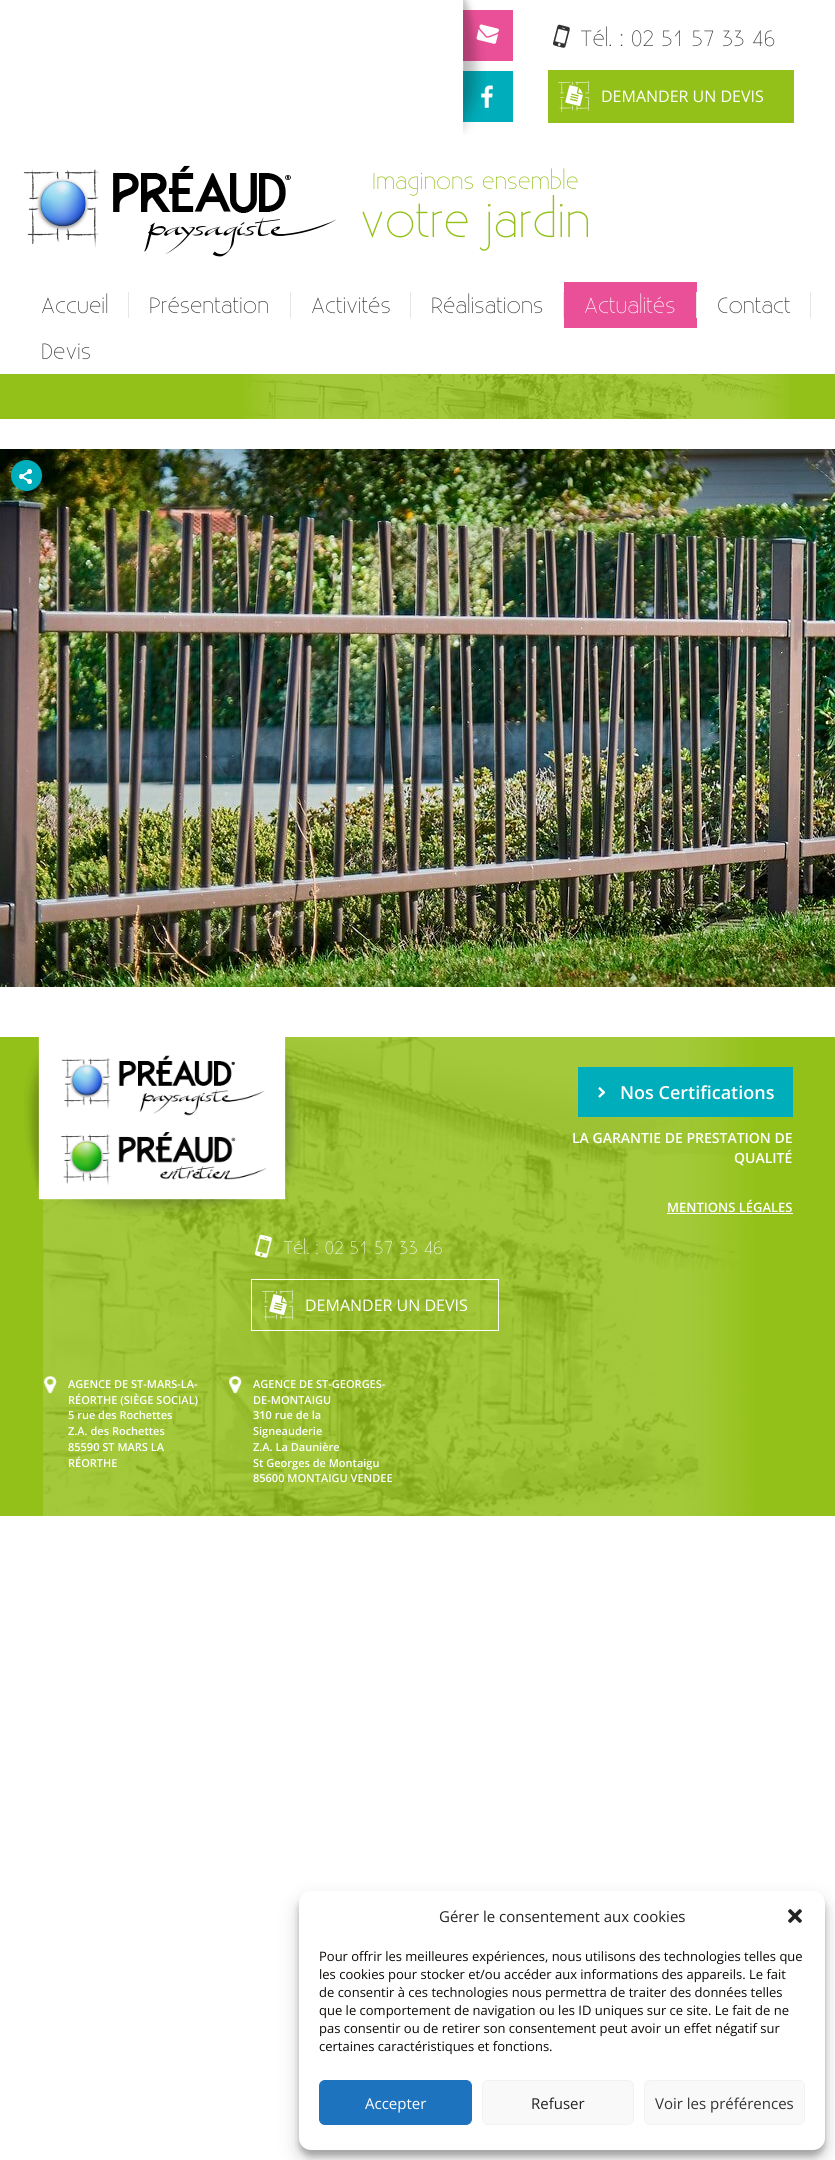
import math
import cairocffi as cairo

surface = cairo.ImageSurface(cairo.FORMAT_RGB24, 835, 2160)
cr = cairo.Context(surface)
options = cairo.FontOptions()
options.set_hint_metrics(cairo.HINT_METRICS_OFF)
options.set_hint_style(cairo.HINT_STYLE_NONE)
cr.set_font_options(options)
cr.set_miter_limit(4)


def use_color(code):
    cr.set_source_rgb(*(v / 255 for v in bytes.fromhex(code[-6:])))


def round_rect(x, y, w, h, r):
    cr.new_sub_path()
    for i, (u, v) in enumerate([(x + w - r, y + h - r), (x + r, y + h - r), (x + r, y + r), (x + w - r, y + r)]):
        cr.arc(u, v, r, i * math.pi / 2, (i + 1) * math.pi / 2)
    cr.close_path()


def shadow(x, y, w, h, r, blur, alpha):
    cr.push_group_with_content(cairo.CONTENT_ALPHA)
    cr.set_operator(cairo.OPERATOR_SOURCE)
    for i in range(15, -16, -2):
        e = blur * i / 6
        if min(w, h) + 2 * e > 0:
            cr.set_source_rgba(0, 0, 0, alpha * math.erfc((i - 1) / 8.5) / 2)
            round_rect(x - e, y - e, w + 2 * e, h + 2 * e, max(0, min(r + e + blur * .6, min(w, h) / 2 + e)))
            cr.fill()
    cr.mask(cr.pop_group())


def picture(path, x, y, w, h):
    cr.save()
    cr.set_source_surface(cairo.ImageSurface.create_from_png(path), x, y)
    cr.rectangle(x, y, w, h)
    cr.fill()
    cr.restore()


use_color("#ffffff")
cr.paint()
use_color("#ea5097")
cr.rectangle(463, 10, 50, 51)
cr.fill()
picture("img2.png", 476, 24, 23, 20)
use_color("#00adba")
cr.rectangle(463, 71, 50, 51)
cr.fill()
picture("img3.png", 481, 85, 12, 23)
picture("img1.png", 463, 0, 23, 135)
picture("img4.png", 553, 24, 17, 24)
cr.select_font_face("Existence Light")
cr.set_font_size(22)
use_color("#333333")
cr.move_to(580, 46)
cr.show_text("Tél. : 02 51 57 33 46")
use_color("#94c119")
cr.rectangle(548, 70, 246, 53)
cr.fill()
picture("img5.png", 558, 81, 32, 31)
cr.select_font_face("Open Sans")
cr.set_font_size(16)
use_color("#ffffff")
cr.move_to(601, 102)
cr.show_text("DEMANDER UN DEVIS")
picture("img6.png", 23, 165, 314, 92)
cr.select_font_face("Existence Light")
cr.set_font_size(23)
use_color("#94c119")
cr.move_to(372, 189)
cr.show_text("Imaginons ensemble")
cr.set_font_size(47)
cr.move_to(360, 237)
cr.show_text("votre jardin")
use_color("#e6e6e5")
cr.rectangle(128, 292, 1, 26)
cr.fill()
cr.set_font_size(22)
use_color("#333333")
cr.move_to(41, 313)
cr.show_text("Accueil")
use_color("#e6e6e5")
cr.rectangle(290, 292, 1, 26)
cr.fill()
use_color("#333333")
cr.move_to(149, 313)
cr.show_text("Présentation")
use_color("#e6e6e5")
cr.rectangle(410, 292, 1, 26)
cr.fill()
use_color("#333333")
cr.move_to(311, 313)
cr.show_text("Activités")
use_color("#e6e6e5")
cr.rectangle(563, 292, 1, 26)
cr.fill()
use_color("#333333")
cr.move_to(431, 313)
cr.show_text("Réalisations")
use_color("#ea5097")
cr.rectangle(564, 282, 133, 46)
cr.fill()
use_color("#e6e6e5")
cr.rectangle(696, 292, 1, 26)
cr.fill()
use_color("#ffffff")
cr.move_to(584, 313)
cr.show_text("Actualités")
use_color("#e6e6e5")
cr.rectangle(810, 292, 1, 26)
cr.fill()
use_color("#333333")
cr.move_to(717, 313)
cr.show_text("Contact")
cr.move_to(41, 359)
cr.show_text("Devis")
use_color("#94c119")
cr.rectangle(0, 374, 835, 45)
cr.fill()
picture("img7.png", 244, 374, 546, 45)
picture("img8.png", 0, 449, 835, 538)
picture("img9.png", 11, 460, 31, 31)
cr.rectangle(0, 1037, 835, 479)
cr.fill()
picture("img10.png", 43, 1037, 710, 479)
use_color("#00adba")
cr.rectangle(578, 1067, 215, 50)
cr.fill()
picture("img11.png", 598, 1087, 8, 11)
cr.select_font_face("Open Sans SemiBold")
cr.set_font_size(18)
use_color("#ffffff")
cr.move_to(620, 1099)
cr.show_text("Nos Certifications")
cr.set_font_size(14)
cr.move_to(572, 1143)
cr.show_text("LA GARANTIE DE PRESTATION DE")
cr.move_to(734, 1163)
cr.show_text("QUALITÉ")
cr.set_font_size(13)
cr.move_to(667, 1212)
cr.show_text("MENTIONS LÉGALES")
cr.rectangle(667, 1213, 126, 1)
cr.fill()
picture("img12.png", 24, 1037, 277, 179)
picture("img13.png", 255, 1234, 17, 24)
cr.select_font_face("Existence Light")
cr.set_font_size(18)
cr.move_to(283, 1254)
cr.show_text("Tél. : 02 51 57 33 46")
cr.rectangle(251.5, 1279.5, 247, 51)
cr.set_line_width(1)
cr.stroke()
picture("img14.png", 262, 1290, 32, 31)
cr.select_font_face("Open Sans")
cr.set_font_size(16)
cr.move_to(305, 1311)
cr.show_text("DEMANDER UN DEVIS")
picture("img15.png", 44, 1376, 13, 18)
cr.select_font_face("Open Sans SemiBold")
cr.set_font_size(11)
cr.move_to(68, 1388)
cr.show_text("AGENCE DE ST-MARS-LA-")
cr.move_to(68, 1404)
cr.show_text("RÉORTHE (SIÈGE SOCIAL)")
cr.move_to(68, 1419)
cr.show_text("5 rue des Rochettes")
cr.move_to(68, 1435)
cr.show_text("Z.A. des Rochettes")
cr.move_to(68, 1451)
cr.show_text("85590 ST MARS LA")
cr.move_to(68, 1467)
cr.show_text("RÉORTHE")
picture("img16.png", 229, 1376, 13, 18)
cr.move_to(253, 1388)
cr.show_text("AGENCE DE ST-GEORGES-")
cr.move_to(253, 1404)
cr.show_text("DE-MONTAIGU")
cr.move_to(253, 1419)
cr.show_text("310 rue de la")
cr.move_to(253, 1435)
cr.show_text("Signeauderie")
cr.move_to(253, 1451)
cr.show_text("Z.A. La Daunière")
cr.move_to(253, 1467)
cr.show_text("St Georges de Montaigu")
cr.move_to(253, 1482)
cr.show_text("85600 MONTAIGU VENDEE")
use_color("#000000")
shadow(299, 1897, 526, 259, 12, 3, 0.23)
shadow(299, 1901, 526, 259, 12, 10, 0.19)
use_color("#ffffff")
round_rect(299, 1891, 526, 259, 12)
cr.fill()
cr.select_font_face("Open Sans")
cr.set_font_size(15)
use_color("#222222")
cr.move_to(439, 1922)
cr.show_text("Gérer le consentement aux cookies")
picture("img17.png", 788, 1909, 14, 14)
cr.set_font_size(13)
use_color("#0a0704")
cr.move_to(319, 1961)
cr.show_text("Pour offrir les meilleures expériences, nous utilisons des technologies telles que")
cr.move_to(319, 1979)
cr.show_text("les cookies pour stocker et/ou accéder aux informations des appareils. Le fait")
cr.move_to(319, 1997)
cr.show_text("de consentir à ces technologies nous permettra de traiter des données telles")
cr.move_to(319, 2015)
cr.show_text("que le comportement de navigation ou les ID uniques sur ce site. Le fait de ne")
cr.move_to(319, 2033)
cr.show_text("pas consentir ou de retirer son consentement peut avoir un effet négatif sur")
cr.move_to(319, 2051)
cr.show_text("certaines caractéristiques et fonctions.")
use_color("#1e73be")
round_rect(319.5, 2080.5, 152, 44, 5.5)
cr.fill_preserve()
cr.stroke()
cr.set_font_size(15)
use_color("#ffffff")
cr.move_to(365, 2109)
cr.show_text("Accepter")
use_color("#f9f9f9")
round_rect(482.5, 2080.5, 151, 44, 5.5)
cr.fill_preserve()
use_color("#f2f2f2")
cr.stroke()
use_color("#222222")
cr.move_to(531, 2109)
cr.show_text("Refuser")
use_color("#f9f9f9")
round_rect(644.5, 2080.5, 160, 44, 5.5)
cr.fill_preserve()
use_color("#f2f2f2")
cr.stroke()
use_color("#333333")
cr.move_to(655, 2109)
cr.show_text("Voir les préférences")
surface.write_to_png("result.png")
